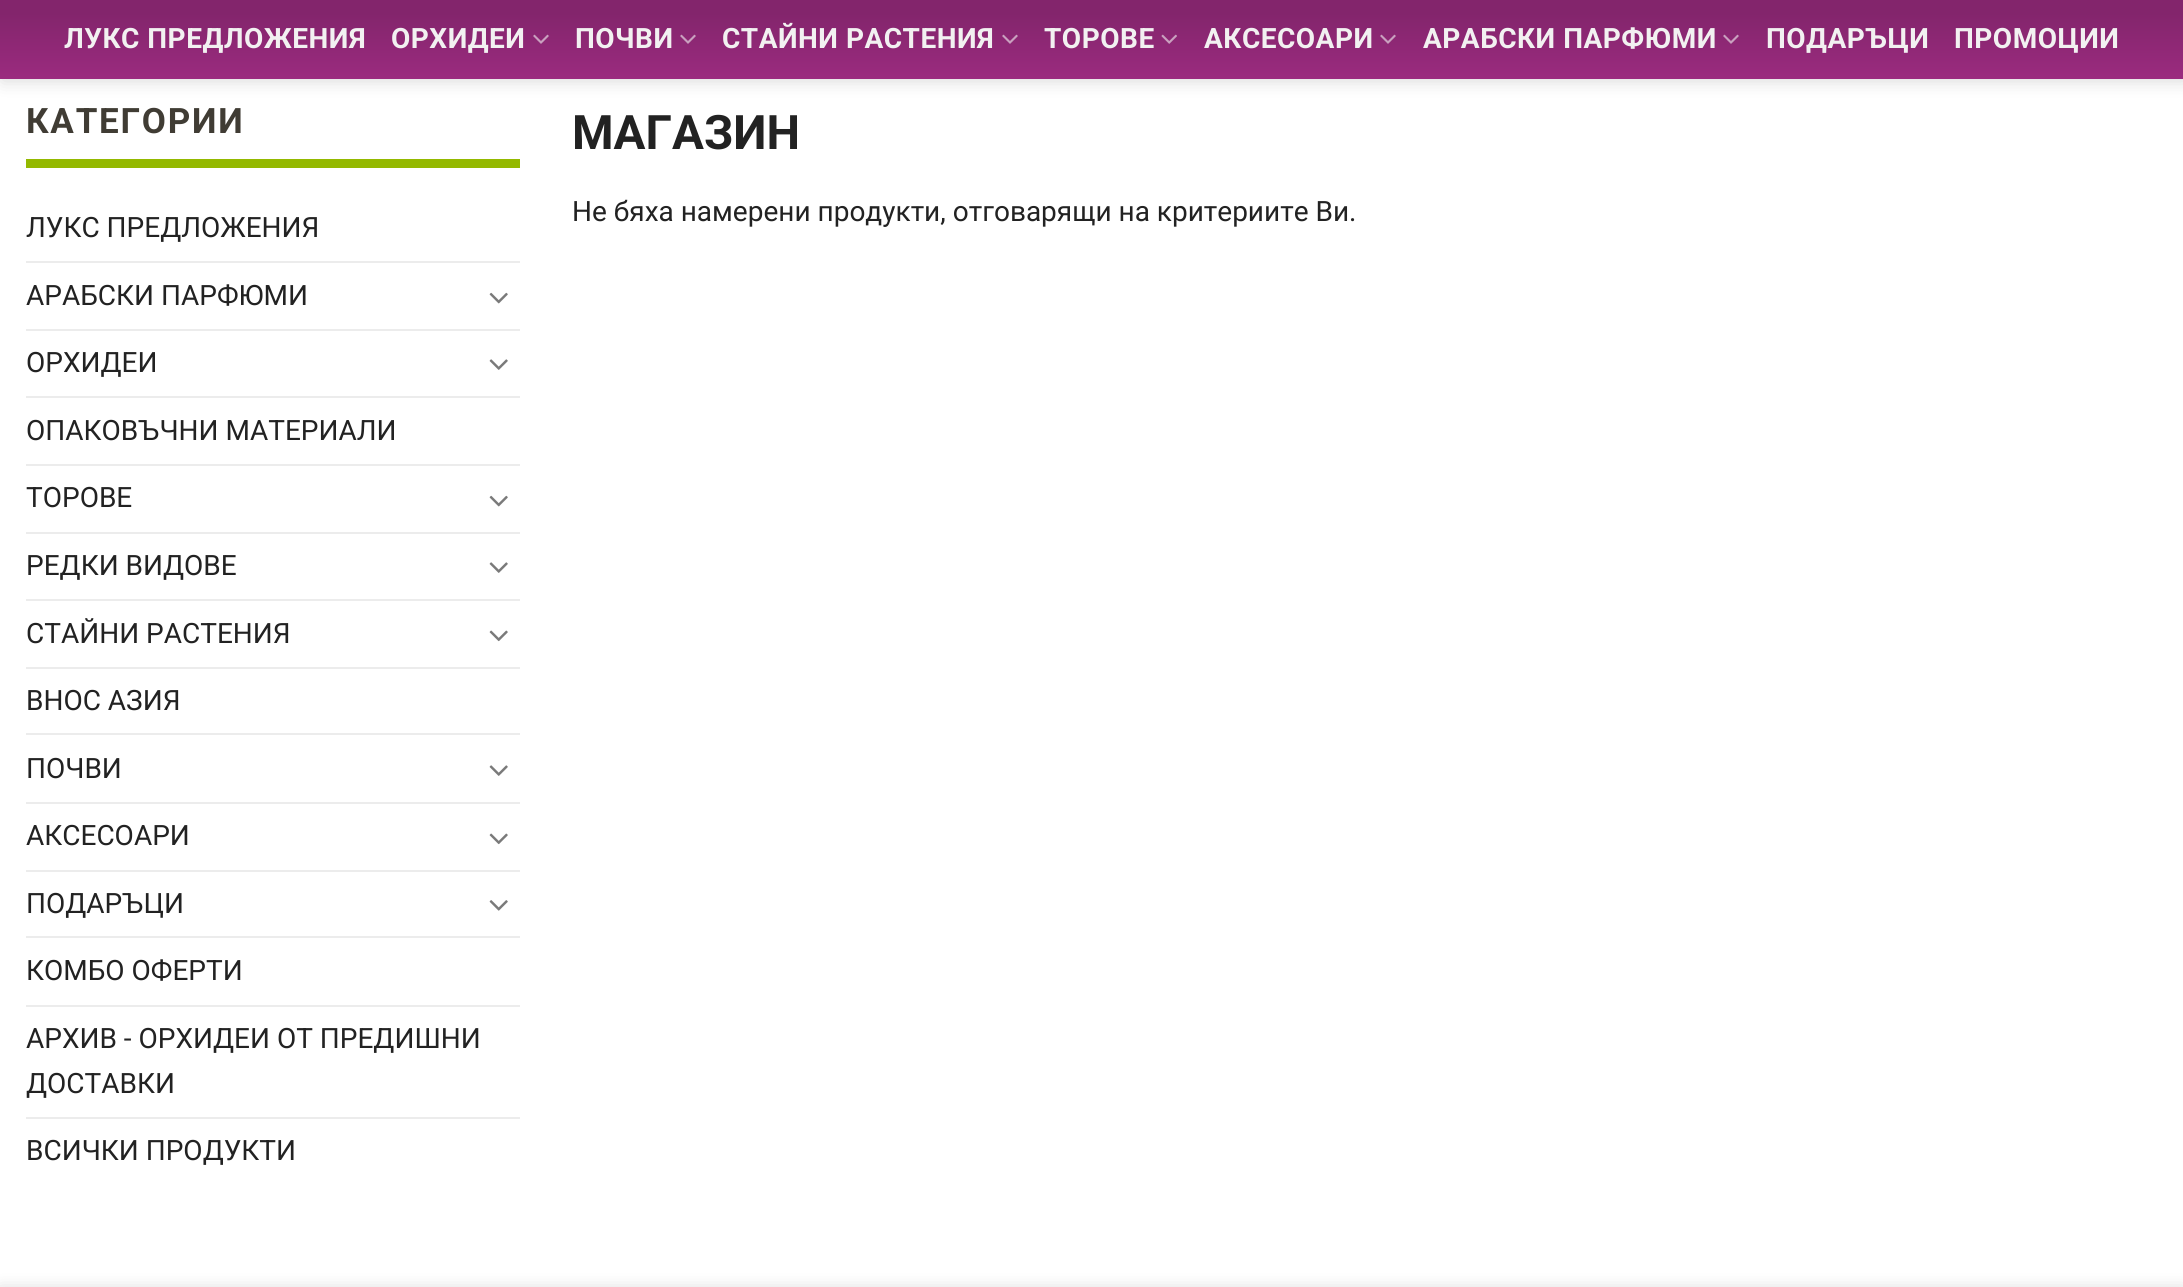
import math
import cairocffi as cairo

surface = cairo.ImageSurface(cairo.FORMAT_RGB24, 2183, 1287)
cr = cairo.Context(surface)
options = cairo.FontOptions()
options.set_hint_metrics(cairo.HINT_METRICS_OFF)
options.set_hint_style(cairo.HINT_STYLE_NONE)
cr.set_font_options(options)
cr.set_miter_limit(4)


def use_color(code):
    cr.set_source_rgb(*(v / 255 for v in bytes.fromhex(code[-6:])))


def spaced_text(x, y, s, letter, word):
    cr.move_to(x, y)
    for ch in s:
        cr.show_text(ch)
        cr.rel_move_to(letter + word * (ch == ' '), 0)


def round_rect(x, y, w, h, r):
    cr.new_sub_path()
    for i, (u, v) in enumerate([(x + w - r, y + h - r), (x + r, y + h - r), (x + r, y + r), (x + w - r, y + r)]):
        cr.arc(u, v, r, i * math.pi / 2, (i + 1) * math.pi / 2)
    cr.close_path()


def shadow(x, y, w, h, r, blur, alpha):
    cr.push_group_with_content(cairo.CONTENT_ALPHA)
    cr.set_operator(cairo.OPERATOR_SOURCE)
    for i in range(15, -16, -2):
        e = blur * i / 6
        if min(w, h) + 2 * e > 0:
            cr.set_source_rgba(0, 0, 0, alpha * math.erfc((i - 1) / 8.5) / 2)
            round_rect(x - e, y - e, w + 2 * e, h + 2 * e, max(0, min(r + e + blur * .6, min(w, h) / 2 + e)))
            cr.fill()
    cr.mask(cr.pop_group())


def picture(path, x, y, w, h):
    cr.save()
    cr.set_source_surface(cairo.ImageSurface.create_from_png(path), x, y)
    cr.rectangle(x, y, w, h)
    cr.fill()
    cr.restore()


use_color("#ffffff")
cr.paint()
use_color("#000000")
shadow(2, 2, 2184, 79, 0, 9, 0.15)
gradient = cairo.LinearGradient(1092, 79, 1092, 0)
gradient.add_color_stop_rgba(0, 0.608, 0.169, 0.498, 1)
gradient.add_color_stop_rgba(0.83, 0.514, 0.145, 0.424, 1)
cr.set_source(gradient)
cr.rectangle(0, 0, 2183, 79)
cr.fill()
cr.select_font_face("Roboto", cairo.FONT_SLANT_NORMAL, cairo.FONT_WEIGHT_BOLD)
cr.set_font_size(28)
use_color("#f2f1f1")
spaced_text(64, 48, "ЛУКС ПРЕДЛОЖЕНИЯ", 0.5, 0)
spaced_text(391, 48, "ОРХИДЕИ", 0.5, 0)
picture("img1.png", 533, 34, 16, 10)
spaced_text(575, 48, "ПОЧВИ", 0.5, 0)
picture("img1.png", 680, 34, 16, 10)
spaced_text(722, 48, "СТАЙНИ РАСТЕНИЯ", 0.5, 0)
picture("img1.png", 1002, 34, 16, 10)
spaced_text(1044, 48, "ТОРОВЕ", 0.5, 0)
picture("img2.png", 1161, 34, 16, 10)
spaced_text(1204, 48, "АКСЕСОАРИ", 0.5, 0)
picture("img1.png", 1380, 34, 16, 10)
spaced_text(1423, 48, "АРАБСКИ ПАРФЮМИ", 0.5, 0)
picture("img1.png", 1723, 34, 16, 10)
spaced_text(1766, 48, "ПОДАРЪЦИ", 0.5, 0)
spaced_text(1954, 48, "ПРОМОЦИИ", 0.5, 0)
cr.set_font_size(35)
use_color("#403c34")
spaced_text(26, 133, "КАТЕГОРИИ", 1.75, 0)
use_color("#94b900")
cr.rectangle(26, 159, 494, 9)
cr.fill()
cr.select_font_face("Roboto")
cr.set_font_size(28)
use_color("#222222")
cr.move_to(26, 237)
cr.show_text("ЛУКС ПРЕДЛОЖЕНИЯ")
use_color("#ececec")
cr.rectangle(26, 261, 494, 2)
cr.fill()
use_color("#222222")
cr.move_to(26, 305)
cr.show_text("АРАБСКИ ПАРФЮМИ")
picture("img3.png", 489, 292, 19, 12)
use_color("#ececec")
cr.rectangle(26, 329, 494, 2)
cr.fill()
use_color("#222222")
cr.move_to(26, 372)
cr.show_text("ОРХИДЕИ")
picture("img4.png", 489, 359, 19, 11)
use_color("#ececec")
cr.rectangle(26, 396, 494, 2)
cr.fill()
use_color("#222222")
cr.move_to(26, 440)
cr.show_text("ОПАКОВЪЧНИ МАТЕРИАЛИ")
use_color("#ececec")
cr.rectangle(26, 464, 494, 2)
cr.fill()
use_color("#222222")
cr.move_to(26, 507)
cr.show_text("ТОРОВЕ")
picture("img3.png", 489, 495, 19, 12)
use_color("#ececec")
cr.rectangle(26, 532, 494, 2)
cr.fill()
use_color("#222222")
cr.move_to(26, 575)
cr.show_text("РЕДКИ ВИДОВЕ")
picture("img4.png", 489, 562, 19, 11)
use_color("#ececec")
cr.rectangle(26, 599, 494, 2)
cr.fill()
use_color("#222222")
cr.move_to(26, 643)
cr.show_text("СТАЙНИ РАСТЕНИЯ")
picture("img5.png", 489, 630, 19, 12)
use_color("#ececec")
cr.rectangle(26, 667, 494, 2)
cr.fill()
use_color("#222222")
cr.move_to(26, 710)
cr.show_text("ВНОС АЗИЯ")
use_color("#ececec")
cr.rectangle(26, 733, 494, 2)
cr.fill()
use_color("#222222")
cr.move_to(26, 778)
cr.show_text("ПОЧВИ")
picture("img4.png", 489, 765, 19, 11)
use_color("#ececec")
cr.rectangle(26, 802, 494, 2)
cr.fill()
use_color("#222222")
cr.move_to(26, 845)
cr.show_text("АКСЕСОАРИ")
picture("img5.png", 489, 833, 19, 12)
use_color("#ececec")
cr.rectangle(26, 870, 494, 2)
cr.fill()
use_color("#222222")
cr.move_to(26, 913)
cr.show_text("ПОДАРЪЦИ")
picture("img6.png", 489, 900, 19, 11)
use_color("#ececec")
cr.rectangle(26, 936, 494, 2)
cr.fill()
use_color("#222222")
cr.move_to(26, 980)
cr.show_text("КОМБО ОФЕРТИ")
use_color("#ececec")
cr.rectangle(26, 1005, 494, 2)
cr.fill()
use_color("#222222")
cr.move_to(26, 1048)
cr.show_text("АРХИВ - ОРХИДЕИ ОТ ПРЕДИШНИ")
cr.move_to(26, 1093)
cr.show_text("ДОСТАВКИ")
use_color("#ececec")
cr.rectangle(26, 1117, 494, 2)
cr.fill()
use_color("#222222")
cr.move_to(26, 1160)
cr.show_text("ВСИЧКИ ПРОДУКТИ")
cr.select_font_face("Roboto", cairo.FONT_SLANT_NORMAL, cairo.FONT_WEIGHT_BOLD)
cr.set_font_size(47.5)
cr.move_to(572, 149)
cr.show_text("МАГАЗИН")
cr.select_font_face("Roboto")
cr.set_font_size(28)
cr.move_to(572, 221)
cr.show_text("Не бяха намерени продукти, отговарящи на критериите Ви.")
use_color("#000000")
shadow(0, 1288, 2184, 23, 0, 8, 0.14)
surface.write_to_png("result.png")
